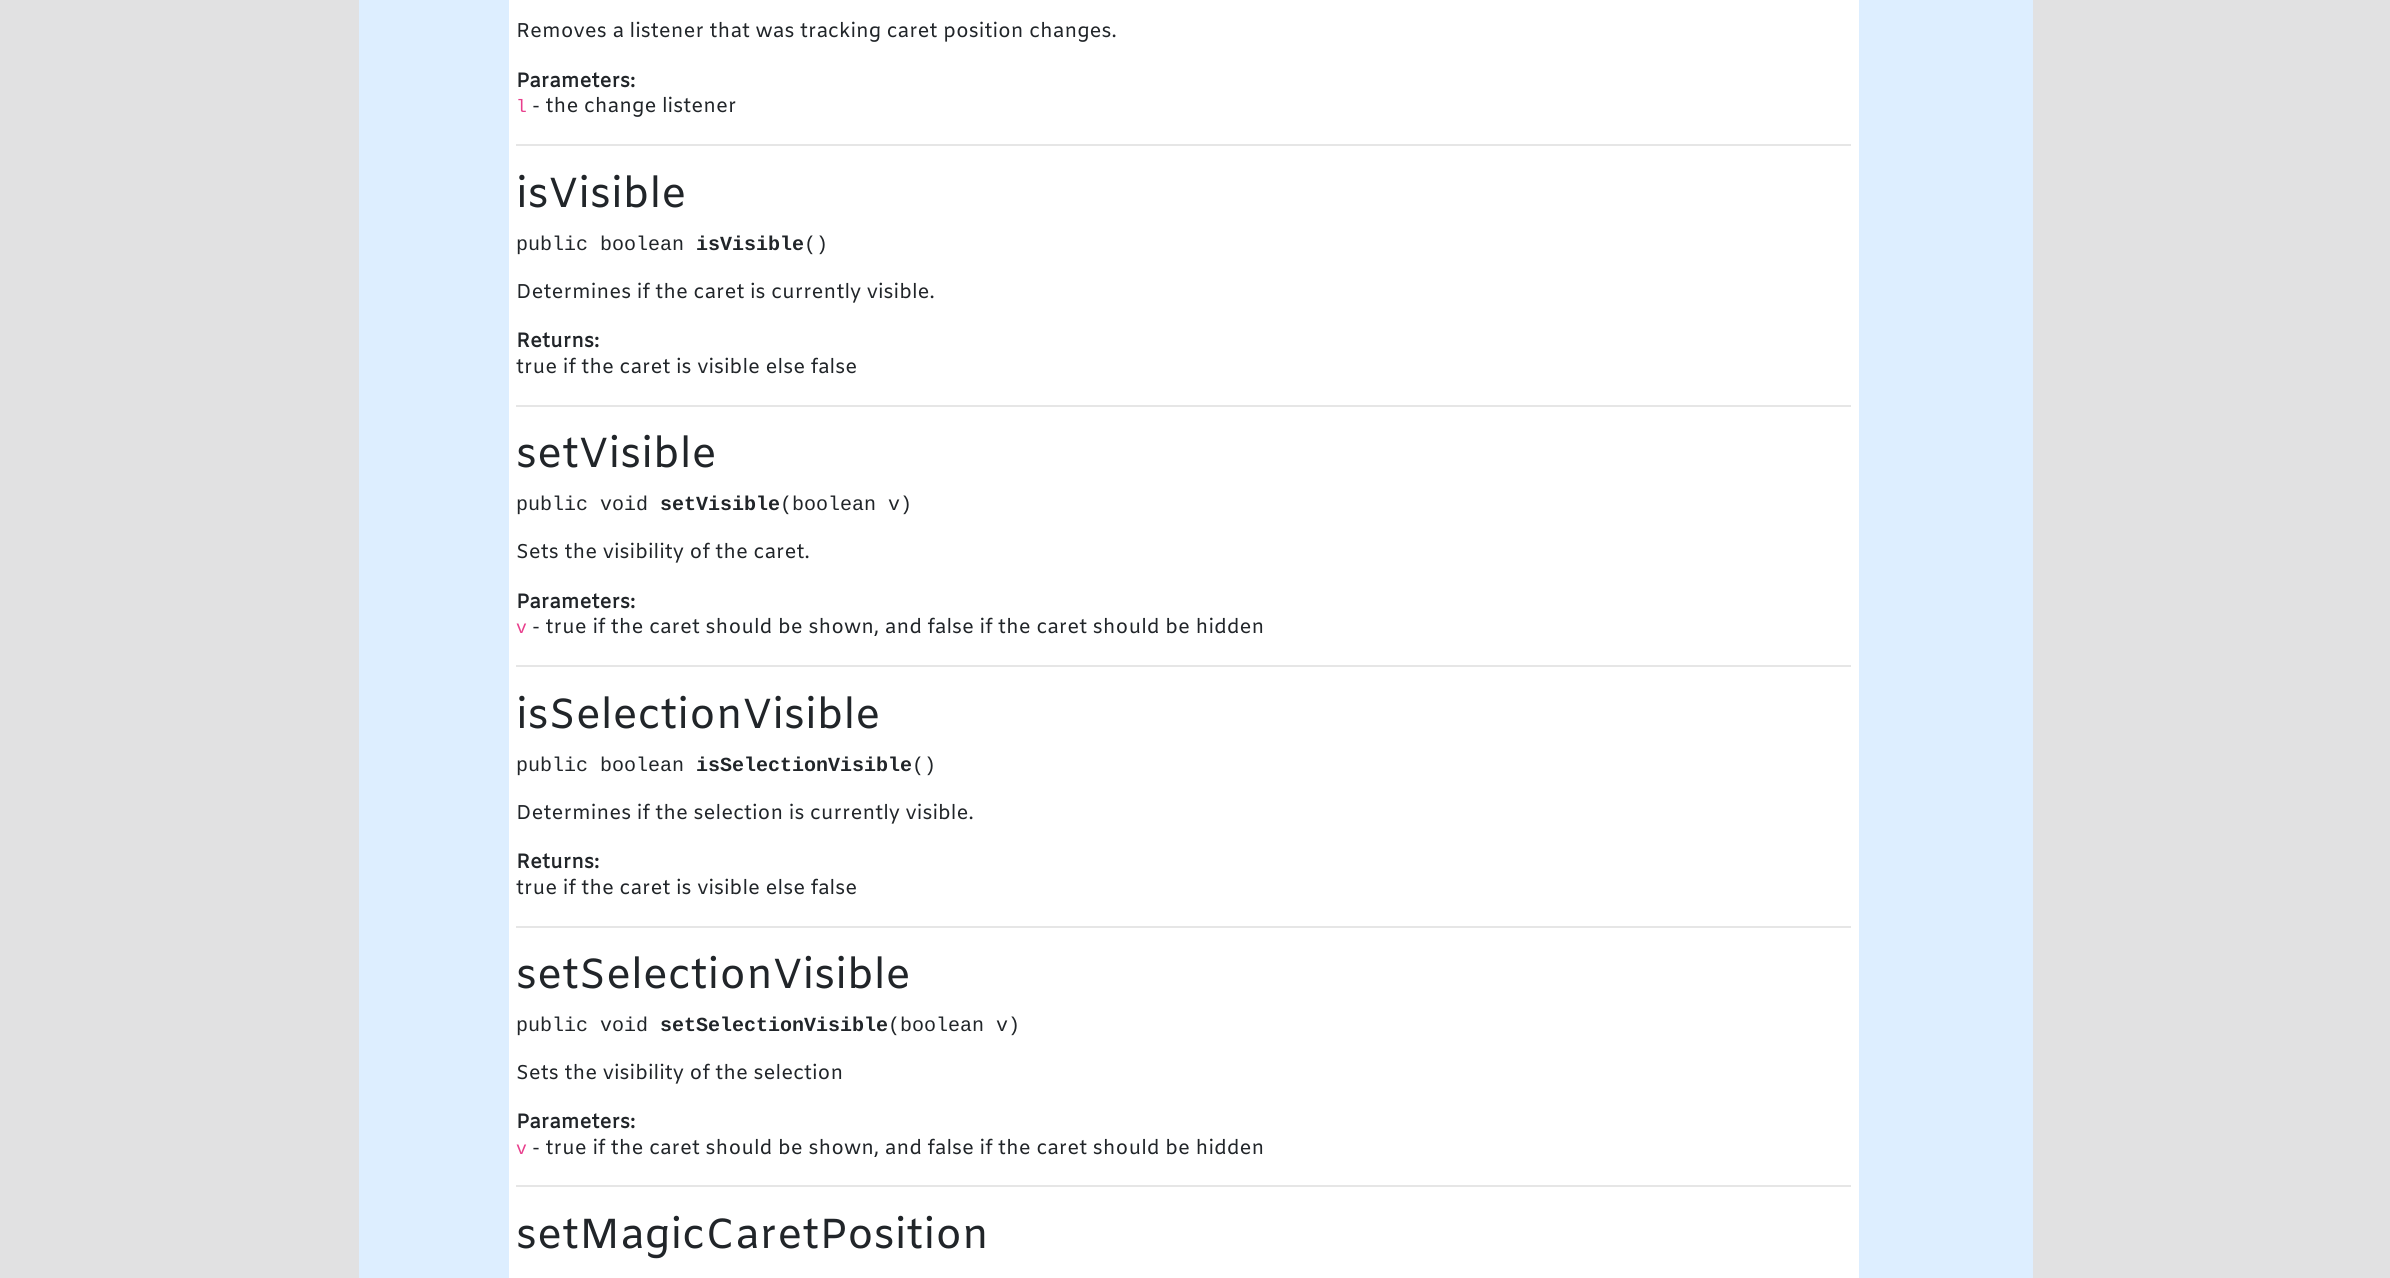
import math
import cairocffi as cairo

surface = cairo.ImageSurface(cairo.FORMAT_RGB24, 2390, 1278)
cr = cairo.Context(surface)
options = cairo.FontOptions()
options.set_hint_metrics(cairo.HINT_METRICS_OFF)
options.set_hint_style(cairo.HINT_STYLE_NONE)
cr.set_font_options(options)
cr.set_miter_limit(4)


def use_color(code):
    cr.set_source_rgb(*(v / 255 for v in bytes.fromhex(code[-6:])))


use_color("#e1e1e2")
cr.paint()
use_color("#ffffff")
cr.rectangle(509, 0, 1350, 1278)
cr.fill()
use_color("#ddeeff")
cr.rectangle(359, 0, 150, 1278)
cr.fill()
cr.rectangle(1859, 0, 174, 1278)
cr.fill()
cr.select_font_face("Amiko")
cr.set_font_size(20)
use_color("#212529")
cr.move_to(516, 37)
cr.show_text("Removes a listener that was tracking caret position changes.")
cr.select_font_face("Amiko", cairo.FONT_SLANT_NORMAL, cairo.FONT_WEIGHT_BOLD)
cr.move_to(516, 87)
cr.show_text("Parameters:")
cr.select_font_face("Liberation Mono")
cr.set_font_size(18)
use_color("#e83e8c")
cr.move_to(516, 112)
cr.show_text("l")
cr.select_font_face("Amiko")
cr.set_font_size(20)
use_color("#212529")
cr.move_to(532, 112)
cr.show_text("- the change listener")
use_color("#e6e6e6")
cr.rectangle(516, 144, 1335, 2)
cr.fill()
cr.set_font_size(42)
use_color("#212529")
cr.move_to(516, 207)
cr.show_text("isVisible")
cr.select_font_face("Liberation Mono")
cr.set_font_size(20)
cr.move_to(516, 250)
cr.show_text("public boolean")
cr.select_font_face("Liberation Mono", cairo.FONT_SLANT_NORMAL, cairo.FONT_WEIGHT_BOLD)
cr.move_to(696, 250)
cr.show_text("isVisible")
cr.select_font_face("Liberation Mono")
cr.move_to(804, 250)
cr.show_text("()")
cr.select_font_face("Amiko")
cr.move_to(516, 298)
cr.show_text("Determines if the caret is currently visible.")
cr.select_font_face("Amiko", cairo.FONT_SLANT_NORMAL, cairo.FONT_WEIGHT_BOLD)
cr.move_to(516, 347)
cr.show_text("Returns:")
cr.select_font_face("Amiko")
cr.move_to(516, 373)
cr.show_text("true if the caret is visible else false")
use_color("#e6e6e6")
cr.rectangle(516, 405, 1335, 2)
cr.fill()
cr.set_font_size(42)
use_color("#212529")
cr.move_to(516, 467)
cr.show_text("setVisible")
cr.select_font_face("Liberation Mono")
cr.set_font_size(20)
cr.move_to(516, 510)
cr.show_text("public void")
cr.select_font_face("Liberation Mono", cairo.FONT_SLANT_NORMAL, cairo.FONT_WEIGHT_BOLD)
cr.move_to(660, 510)
cr.show_text("setVisible")
cr.select_font_face("Liberation Mono")
cr.move_to(780, 510)
cr.show_text("(boolean v)")
cr.select_font_face("Amiko")
cr.move_to(516, 558)
cr.show_text("Sets the visibility of the caret.")
cr.select_font_face("Amiko", cairo.FONT_SLANT_NORMAL, cairo.FONT_WEIGHT_BOLD)
cr.move_to(516, 608)
cr.show_text("Parameters:")
cr.select_font_face("Liberation Mono")
cr.set_font_size(18)
use_color("#e83e8c")
cr.move_to(516, 633)
cr.show_text("v")
cr.select_font_face("Amiko")
cr.set_font_size(20)
use_color("#212529")
cr.move_to(532, 633)
cr.show_text("- true if the caret should be shown, and false if the caret should be hidden")
use_color("#e6e6e6")
cr.rectangle(516, 665, 1335, 2)
cr.fill()
cr.set_font_size(42)
use_color("#212529")
cr.move_to(516, 728)
cr.show_text("isSelectionVisible")
cr.select_font_face("Liberation Mono")
cr.set_font_size(20)
cr.move_to(516, 771)
cr.show_text("public boolean")
cr.select_font_face("Liberation Mono", cairo.FONT_SLANT_NORMAL, cairo.FONT_WEIGHT_BOLD)
cr.move_to(696, 771)
cr.show_text("isSelectionVisible")
cr.select_font_face("Liberation Mono")
cr.move_to(912, 771)
cr.show_text("()")
cr.select_font_face("Amiko")
cr.move_to(516, 819)
cr.show_text("Determines if the selection is currently visible.")
cr.select_font_face("Amiko", cairo.FONT_SLANT_NORMAL, cairo.FONT_WEIGHT_BOLD)
cr.move_to(516, 868)
cr.show_text("Returns:")
cr.select_font_face("Amiko")
cr.move_to(516, 894)
cr.show_text("true if the caret is visible else false")
use_color("#e6e6e6")
cr.rectangle(516, 926, 1335, 2)
cr.fill()
cr.set_font_size(42)
use_color("#212529")
cr.move_to(516, 988)
cr.show_text("setSelectionVisible")
cr.select_font_face("Liberation Mono")
cr.set_font_size(20)
cr.move_to(516, 1031)
cr.show_text("public void")
cr.select_font_face("Liberation Mono", cairo.FONT_SLANT_NORMAL, cairo.FONT_WEIGHT_BOLD)
cr.move_to(660, 1031)
cr.show_text("setSelectionVisible")
cr.select_font_face("Liberation Mono")
cr.move_to(888, 1031)
cr.show_text("(boolean v)")
cr.select_font_face("Amiko")
cr.move_to(516, 1079)
cr.show_text("Sets the visibility of the selection")
cr.select_font_face("Amiko", cairo.FONT_SLANT_NORMAL, cairo.FONT_WEIGHT_BOLD)
cr.move_to(516, 1128)
cr.show_text("Parameters:")
cr.select_font_face("Liberation Mono")
cr.set_font_size(18)
use_color("#e83e8c")
cr.move_to(516, 1154)
cr.show_text("v")
cr.select_font_face("Amiko")
cr.set_font_size(20)
use_color("#212529")
cr.move_to(532, 1154)
cr.show_text("- true if the caret should be shown, and false if the caret should be hidden")
use_color("#e6e6e6")
cr.rectangle(516, 1185, 1335, 2)
cr.fill()
cr.set_font_size(42)
use_color("#212529")
cr.move_to(516, 1248)
cr.show_text("setMagicCaretPosition")
surface.write_to_png("result.png")
